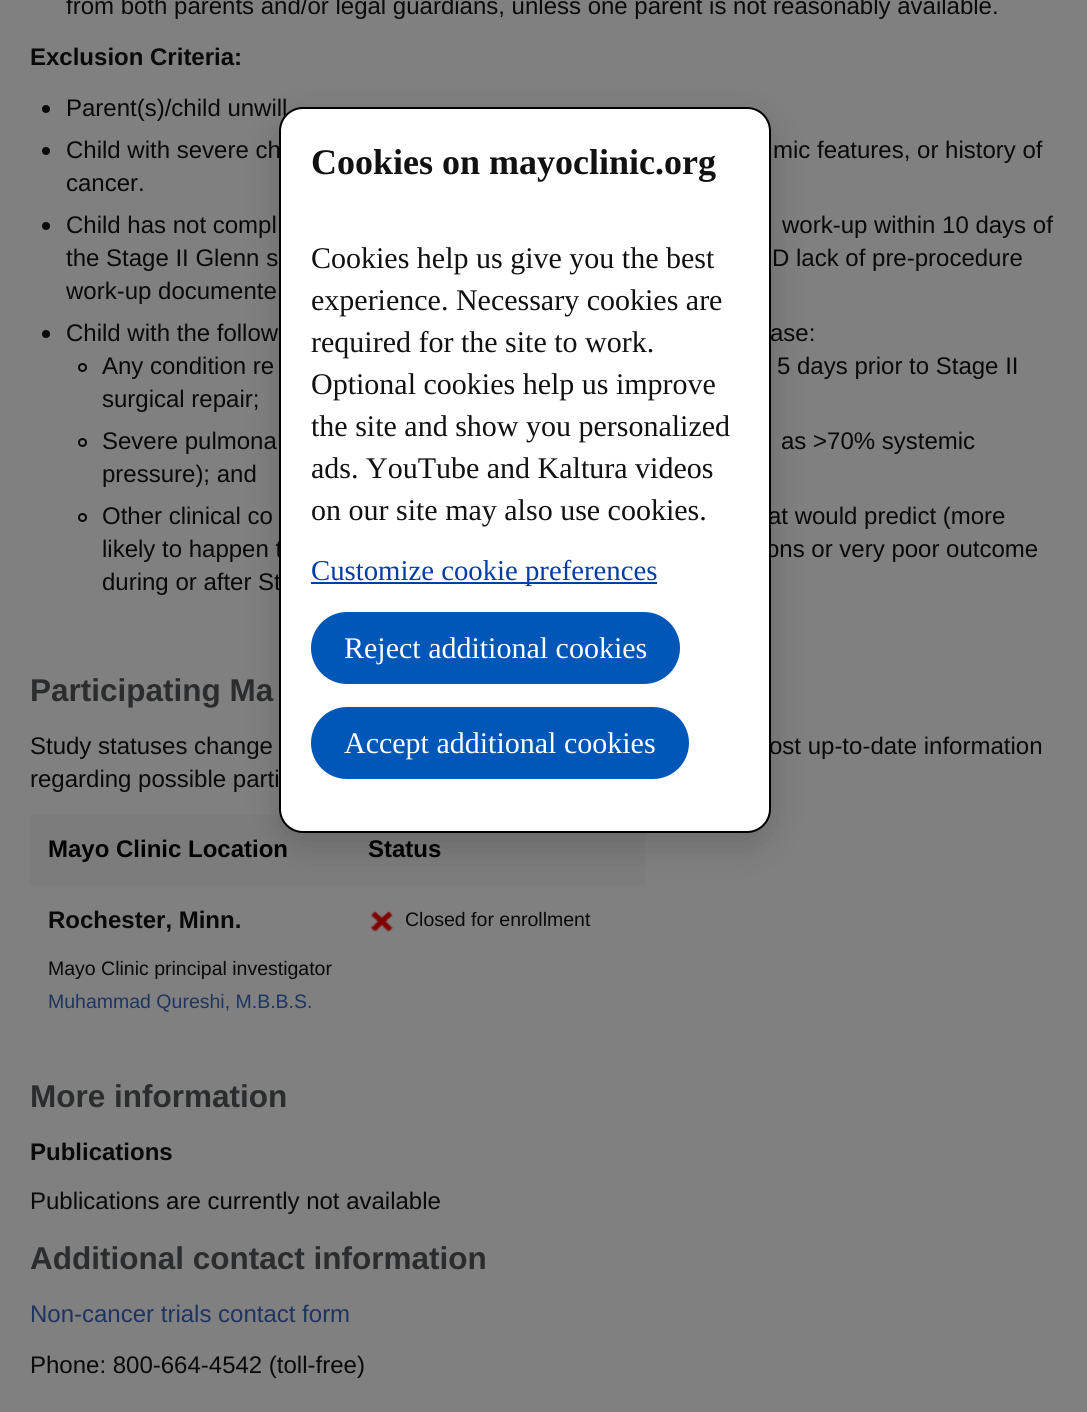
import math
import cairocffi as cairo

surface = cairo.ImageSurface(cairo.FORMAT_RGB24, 1087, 1412)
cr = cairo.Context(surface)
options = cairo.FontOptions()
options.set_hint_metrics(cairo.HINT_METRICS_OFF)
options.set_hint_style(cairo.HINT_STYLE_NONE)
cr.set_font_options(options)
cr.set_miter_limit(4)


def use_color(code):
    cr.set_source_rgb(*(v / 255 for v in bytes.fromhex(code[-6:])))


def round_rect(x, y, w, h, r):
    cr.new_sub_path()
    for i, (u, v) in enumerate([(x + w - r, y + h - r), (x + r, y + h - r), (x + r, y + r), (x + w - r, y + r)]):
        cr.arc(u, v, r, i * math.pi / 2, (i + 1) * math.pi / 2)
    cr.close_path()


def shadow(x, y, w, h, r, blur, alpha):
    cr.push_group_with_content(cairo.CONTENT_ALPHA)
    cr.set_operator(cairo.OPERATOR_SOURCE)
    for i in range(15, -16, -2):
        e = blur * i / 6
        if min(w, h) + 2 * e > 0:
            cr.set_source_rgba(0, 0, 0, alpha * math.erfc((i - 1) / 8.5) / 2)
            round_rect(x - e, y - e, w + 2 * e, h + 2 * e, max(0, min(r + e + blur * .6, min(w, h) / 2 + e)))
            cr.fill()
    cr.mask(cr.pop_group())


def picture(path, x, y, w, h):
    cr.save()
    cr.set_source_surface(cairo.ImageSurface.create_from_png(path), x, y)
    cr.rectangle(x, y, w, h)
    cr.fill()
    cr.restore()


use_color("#808080")
cr.paint()
cr.select_font_face("Liberation Sans")
cr.set_font_size(24)
use_color("#090909")
cr.move_to(66, 14)
cr.show_text("from both parents and/or legal guardians, unless one parent is not reasonably available.")
cr.select_font_face("Liberation Sans", cairo.FONT_SLANT_NORMAL, cairo.FONT_WEIGHT_BOLD)
cr.move_to(30, 65)
cr.show_text("Exclusion Criteria:")
cr.new_path()
cr.arc(46, 109, 4, 0, 2 * math.pi)
cr.fill()
cr.select_font_face("Liberation Sans")
cr.move_to(66, 116)
cr.show_text("Parent(s)/child unwill")
cr.new_path()
cr.arc(46, 151, 4, 0, 2 * math.pi)
cr.fill()
cr.move_to(66, 158)
cr.show_text("Child with severe ch")
cr.move_to(773, 158)
cr.show_text("mic features, or history of")
cr.move_to(66, 191)
cr.show_text("cancer.")
cr.new_path()
cr.arc(46, 226, 4, 0, 2 * math.pi)
cr.fill()
cr.move_to(66, 233)
cr.show_text("Child has not compl")
cr.move_to(782, 233)
cr.show_text("work-up within 10 days of")
cr.move_to(66, 266)
cr.show_text("the Stage II Glenn s")
cr.move_to(772, 266)
cr.show_text("D lack of pre-procedure")
cr.move_to(66, 299)
cr.show_text("work-up documente")
cr.new_path()
cr.arc(46, 334, 4, 0, 2 * math.pi)
cr.fill()
cr.move_to(66, 341)
cr.show_text("Child with the follow")
cr.move_to(770, 341)
cr.show_text("ase:")
cr.new_path()
cr.arc(82.5, 367.5, 3.5, 0, 2 * math.pi)
cr.stroke()
cr.move_to(102, 374)
cr.show_text("Any condition re")
cr.move_to(777, 374)
cr.show_text("5 days prior to Stage II")
cr.move_to(102, 407)
cr.show_text("surgical repair;")
cr.new_path()
cr.arc(82.5, 442.5, 3.5, 0, 2 * math.pi)
cr.stroke()
cr.move_to(102, 449)
cr.show_text("Severe pulmona")
cr.move_to(781, 449)
cr.show_text("as >70% systemic")
cr.move_to(102, 482)
cr.show_text("pressure); and")
cr.new_path()
cr.arc(82.5, 517.5, 3.5, 0, 2 * math.pi)
cr.stroke()
cr.move_to(102, 524)
cr.show_text("Other clinical co")
cr.move_to(768, 524)
cr.show_text("at would predict (more")
cr.move_to(102, 557)
cr.show_text("likely to happen t")
cr.move_to(766, 557)
cr.show_text("ons or very poor outcome")
cr.move_to(102, 590)
cr.show_text("during or after St")
cr.select_font_face("Liberation Sans", cairo.FONT_SLANT_NORMAL, cairo.FONT_WEIGHT_BOLD)
cr.set_font_size(31.5)
use_color("#2a2c2d")
cr.move_to(30, 701)
cr.show_text("Participating Ma")
cr.select_font_face("Liberation Sans")
cr.set_font_size(24)
use_color("#090909")
cr.move_to(30, 754)
cr.show_text("Study statuses change")
cr.move_to(769, 754)
cr.show_text("ost up-to-date information")
cr.move_to(30, 787)
cr.show_text("regarding possible parti")
use_color("#7c7c7c")
cr.rectangle(30, 815, 320, 70)
cr.fill()
cr.select_font_face("Liberation Sans", cairo.FONT_SLANT_NORMAL, cairo.FONT_WEIGHT_BOLD)
use_color("#000000")
cr.move_to(48, 857)
cr.show_text("Mayo Clinic Location")
use_color("#7c7c7c")
cr.rectangle(350, 833, 295, 52)
cr.fill()
use_color("#000000")
cr.move_to(368, 857)
cr.show_text("Status")
use_color("#090909")
cr.move_to(48, 928)
cr.show_text("Rochester, Minn.")
cr.select_font_face("Liberation Sans")
cr.set_font_size(19.5)
cr.move_to(48, 975)
cr.show_text("Mayo Clinic principal investigator")
use_color("#1d3461")
cr.move_to(48, 1008)
cr.show_text("Muhammad Qureshi, M.B.B.S.")
picture("img1.png", 370, 910, 24, 22)
use_color("#090909")
cr.move_to(405, 926)
cr.show_text("Closed for enrollment")
cr.select_font_face("Liberation Sans", cairo.FONT_SLANT_NORMAL, cairo.FONT_WEIGHT_BOLD)
cr.set_font_size(31.5)
use_color("#2a2c2d")
cr.move_to(30, 1107)
cr.show_text("More information")
cr.set_font_size(24)
use_color("#090909")
cr.move_to(30, 1160)
cr.show_text("Publications")
cr.select_font_face("Liberation Sans")
cr.move_to(30, 1209)
cr.show_text("Publications are currently not available")
cr.select_font_face("Liberation Sans", cairo.FONT_SLANT_NORMAL, cairo.FONT_WEIGHT_BOLD)
cr.set_font_size(31.5)
use_color("#2a2c2d")
cr.move_to(30, 1269)
cr.show_text("Additional contact information")
cr.select_font_face("Liberation Sans")
cr.set_font_size(24)
use_color("#1d3461")
cr.move_to(30, 1322)
cr.show_text("Non-cancer trials contact form")
use_color("#090909")
cr.move_to(30, 1373)
cr.show_text("Phone: 800-664-4542 (toll-free)")
use_color("#000000")
shadow(279, 119, 492, 726, 24, 18, 0.16)
use_color("#ffffff")
round_rect(280, 108, 490, 724, 23)
cr.fill_preserve()
use_color("#000000")
cr.stroke()
cr.select_font_face("Liberation Serif", cairo.FONT_SLANT_NORMAL, cairo.FONT_WEIGHT_BOLD)
cr.set_font_size(36)
use_color("#111111")
cr.move_to(311, 174)
cr.show_text("Cookies on mayoclinic.org")
cr.select_font_face("Liberation Serif")
cr.set_font_size(30)
cr.move_to(311, 268)
cr.show_text("Cookies help us give you the best")
cr.move_to(311, 310)
cr.show_text("experience. Necessary cookies are")
cr.move_to(311, 352)
cr.show_text("required for the site to work.")
cr.move_to(311, 394)
cr.show_text("Optional cookies help us improve")
cr.move_to(311, 436)
cr.show_text("the site and show you personalized")
cr.move_to(311, 478)
cr.show_text("ads. YouTube and Kaltura videos")
cr.move_to(311, 520)
cr.show_text("on our site may also use cookies.")
use_color("#003da5")
cr.rectangle(311, 582, 346, 2)
cr.fill()
cr.set_font_size(28.75)
cr.move_to(311, 580)
cr.show_text("Customize cookie preferences")
use_color("#0057b8")
round_rect(312.5, 613.5, 366, 69, 34.5)
cr.fill_preserve()
cr.set_line_width(3)
cr.stroke()
cr.set_font_size(30)
use_color("#ffffff")
cr.move_to(344, 658)
cr.show_text("Reject additional cookies")
use_color("#0057b8")
round_rect(312.5, 708.5, 375, 69, 34.5)
cr.fill_preserve()
cr.stroke()
use_color("#ffffff")
cr.move_to(344, 753)
cr.show_text("Accept additional cookies")
surface.write_to_png("result.png")
